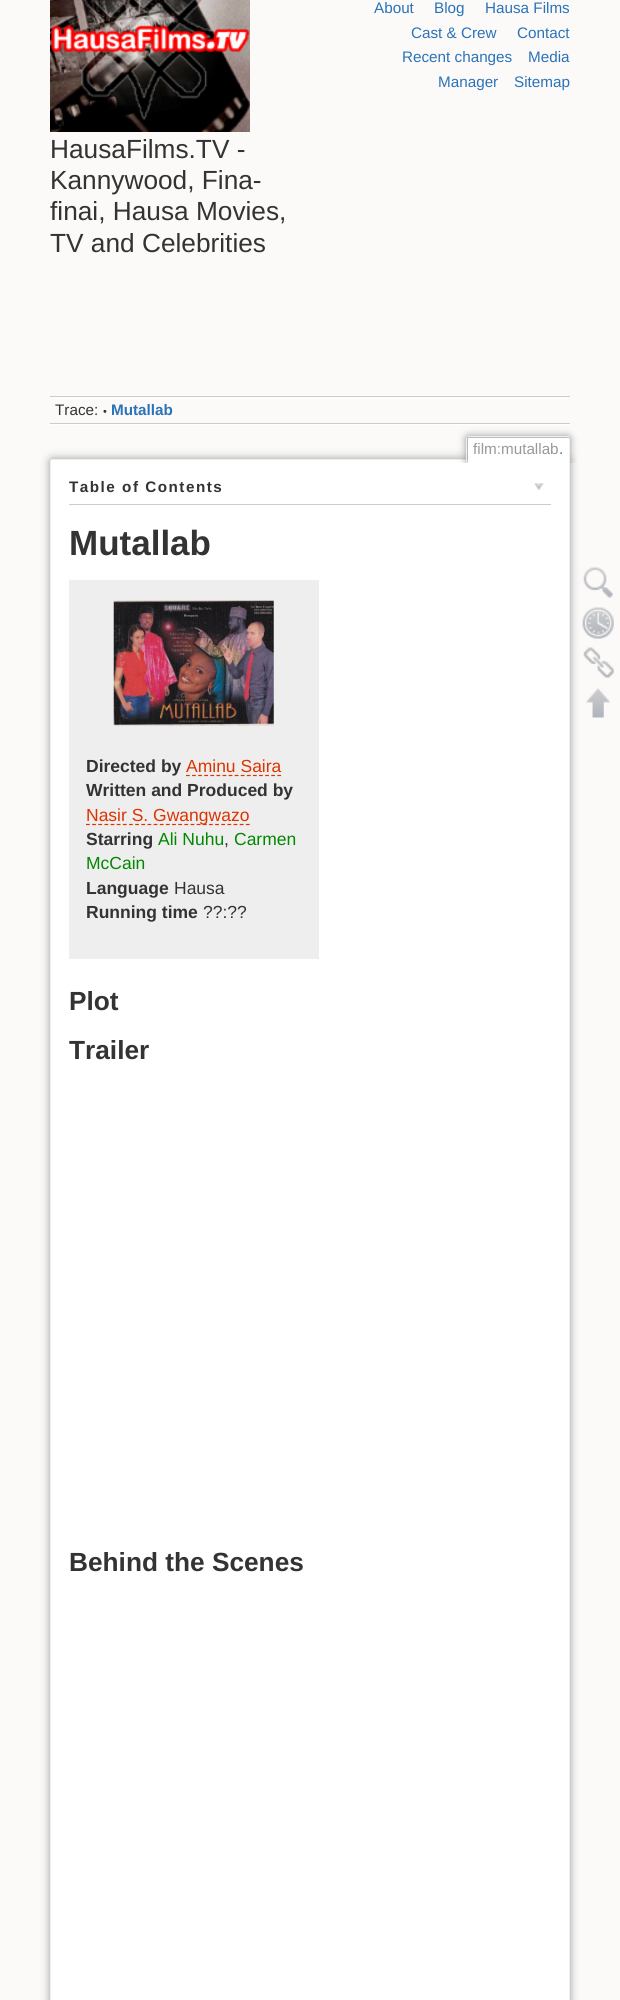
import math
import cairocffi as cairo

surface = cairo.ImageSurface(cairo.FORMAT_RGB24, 620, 2000)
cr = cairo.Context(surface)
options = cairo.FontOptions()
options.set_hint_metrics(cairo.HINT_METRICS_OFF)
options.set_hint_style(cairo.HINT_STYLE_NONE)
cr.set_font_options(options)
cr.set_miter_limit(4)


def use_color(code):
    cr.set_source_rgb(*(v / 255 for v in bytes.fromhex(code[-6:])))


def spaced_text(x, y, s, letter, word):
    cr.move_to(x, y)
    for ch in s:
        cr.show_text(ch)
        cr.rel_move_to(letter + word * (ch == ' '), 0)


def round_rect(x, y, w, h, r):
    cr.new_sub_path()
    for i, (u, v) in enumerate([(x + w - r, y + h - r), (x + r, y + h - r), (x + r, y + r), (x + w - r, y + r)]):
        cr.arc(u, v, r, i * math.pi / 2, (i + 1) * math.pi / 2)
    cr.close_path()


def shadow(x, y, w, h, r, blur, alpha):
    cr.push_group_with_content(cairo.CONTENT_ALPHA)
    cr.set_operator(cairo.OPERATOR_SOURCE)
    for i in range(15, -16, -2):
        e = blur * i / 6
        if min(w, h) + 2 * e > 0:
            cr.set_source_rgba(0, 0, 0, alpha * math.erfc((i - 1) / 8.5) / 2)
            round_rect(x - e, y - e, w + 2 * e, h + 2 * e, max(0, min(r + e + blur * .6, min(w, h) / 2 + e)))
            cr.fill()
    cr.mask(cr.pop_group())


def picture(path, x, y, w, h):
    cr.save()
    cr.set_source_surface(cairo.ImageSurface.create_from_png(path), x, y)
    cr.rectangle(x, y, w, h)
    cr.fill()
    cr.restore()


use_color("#fbfaf9")
cr.paint()
cr.select_font_face("Liberation Sans")
cr.set_font_size(15.25)
use_color("#2b73b7")
cr.move_to(374, 13)
cr.show_text("About")
cr.move_to(434, 13)
cr.show_text("Blog")
cr.move_to(485, 13)
cr.show_text("Hausa Films")
cr.move_to(411, 38)
cr.show_text("Cast & Crew")
cr.move_to(517, 38)
cr.show_text("Contact")
cr.move_to(402, 62)
cr.show_text("Recent changes")
cr.move_to(528, 62)
cr.show_text("Media")
cr.move_to(438, 87)
cr.show_text("Manager")
cr.move_to(514, 87)
cr.show_text("Sitemap")
picture("img1.png", 50, 0, 200, 132)
cr.set_font_size(26.25)
use_color("#333333")
cr.move_to(50, 158)
cr.show_text("HausaFilms.TV -")
cr.move_to(50, 189)
cr.show_text("Kannywood, Fina-")
cr.move_to(50, 220)
cr.show_text("finai, Hausa Movies,")
cr.move_to(50, 252)
cr.show_text("TV and Celebrities")
use_color("#cccccc")
cr.rectangle(50, 396, 520, 1)
cr.fill()
use_color("#ffffff")
cr.rectangle(50, 424, 520, 1)
cr.fill()
cr.rectangle(50, 398, 520, 1)
cr.fill()
use_color("#cccccc")
cr.rectangle(50, 423, 520, 1)
cr.fill()
cr.set_font_size(15.25)
use_color("#333333")
cr.move_to(55, 415)
cr.show_text("Trace:")
cr.set_font_size(11)
cr.move_to(103, 415)
cr.show_text("•")
cr.select_font_face("Liberation Sans", cairo.FONT_SLANT_NORMAL, cairo.FONT_WEIGHT_BOLD)
cr.set_font_size(15.25)
use_color("#2b73b7")
cr.move_to(111, 415)
cr.show_text("Mutallab")
use_color("#999999")
shadow(50, 459, 520, 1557, 2.5, 4.5, 1)
use_color("#ffffff")
round_rect(50.5, 459.5, 519, 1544, 2)
cr.fill_preserve()
use_color("#eeeeee")
cr.set_line_width(1)
cr.stroke()
cr.save()
cr.rectangle(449, 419, 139, 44)
cr.clip()
use_color("#999999")
shadow(466, 436, 104, 27, 2.5, 4, 1)
cr.restore()
use_color("#ffffff")
cr.new_path()
cr.move_to(469, 438)
cr.line_to(568, 438)
cr.curve_to(568.5, 438, 569, 438.5, 569, 439)
cr.line_to(569, 463)
cr.line_to(468, 463)
cr.line_to(468, 439)
cr.curve_to(468, 438.5, 468.5, 438, 469, 438)
cr.close_path()
cr.fill()
use_color("#eeeeee")
cr.rectangle(468, 436, 101, 1)
cr.fill()
cr.rectangle(569, 438, 1, 25)
cr.fill()
cr.rectangle(466, 438, 1, 25)
cr.fill()
cr.select_font_face("Liberation Sans")
use_color("#999999")
cr.move_to(473, 454)
cr.show_text("film:mutallab")
use_color("#2b73b7")
cr.move_to(559, 454)
cr.show_text(".")
use_color("#cccccc")
cr.rectangle(69, 504, 482, 1)
cr.fill()
cr.select_font_face("Liberation Sans", cairo.FONT_SLANT_NORMAL, cairo.FONT_WEIGHT_BOLD)
use_color("#333333")
spaced_text(69, 492, "Table of Contents", 1.5, 0)
picture("img2.png", 534, 483, 10, 7)
cr.set_font_size(35)
cr.move_to(69, 555)
cr.show_text("Mutallab")
use_color("#eeeeee")
cr.rectangle(69, 580, 250, 379)
cr.fill()
picture("img3.png", 113, 600, 161, 126)
cr.set_font_size(17.5)
use_color("#333333")
cr.move_to(86, 772)
cr.show_text("Directed by")
cr.select_font_face("Liberation Sans")
use_color("#dd3300")
cr.move_to(186, 772)
cr.show_text("Aminu Saira")
cr.new_path()
cr.move_to(186, 775.5)
cr.line_to(281, 775.5)
cr.set_line_width(1.2)
cr.set_dash([3.75, 2.34])
cr.stroke()
cr.select_font_face("Liberation Sans", cairo.FONT_SLANT_NORMAL, cairo.FONT_WEIGHT_BOLD)
use_color("#333333")
cr.move_to(86, 796)
cr.show_text("Written and Produced by")
cr.new_path()
cr.move_to(86, 824.5)
cr.line_to(250, 824.5)
use_color("#dd3300")
cr.set_dash([3.75, 2.4])
cr.stroke()
cr.select_font_face("Liberation Sans")
cr.move_to(86, 821)
cr.show_text("Nasir S. Gwangwazo")
cr.select_font_face("Liberation Sans", cairo.FONT_SLANT_NORMAL, cairo.FONT_WEIGHT_BOLD)
use_color("#333333")
cr.move_to(86, 845)
cr.show_text("Starring")
cr.select_font_face("Liberation Sans")
use_color("#008800")
cr.move_to(158, 845)
cr.show_text("Ali Nuhu")
use_color("#333333")
cr.move_to(224, 845)
cr.show_text(",")
use_color("#008800")
cr.move_to(234, 845)
cr.show_text("Carmen")
cr.move_to(86, 869)
cr.show_text("McCain")
cr.select_font_face("Liberation Sans", cairo.FONT_SLANT_NORMAL, cairo.FONT_WEIGHT_BOLD)
use_color("#333333")
cr.move_to(86, 894)
cr.show_text("Language")
cr.select_font_face("Liberation Sans")
cr.move_to(174, 894)
cr.show_text("Hausa")
cr.select_font_face("Liberation Sans", cairo.FONT_SLANT_NORMAL, cairo.FONT_WEIGHT_BOLD)
cr.move_to(86, 918)
cr.show_text("Running time")
cr.select_font_face("Liberation Sans")
cr.move_to(203, 918)
cr.show_text("??:??")
cr.select_font_face("Liberation Sans", cairo.FONT_SLANT_NORMAL, cairo.FONT_WEIGHT_BOLD)
cr.set_font_size(26.25)
cr.move_to(69, 1010)
cr.show_text("Plot")
cr.move_to(69, 1059)
cr.show_text("Trailer")
cr.move_to(69, 1571)
cr.show_text("Behind the Scenes")
picture("img4.png", 583, 567, 31, 31)
picture("img5.png", 582, 607, 32, 32)
picture("img6.png", 583, 647, 31, 31)
picture("img7.png", 586, 688, 24, 30)
surface.write_to_png("result.png")
